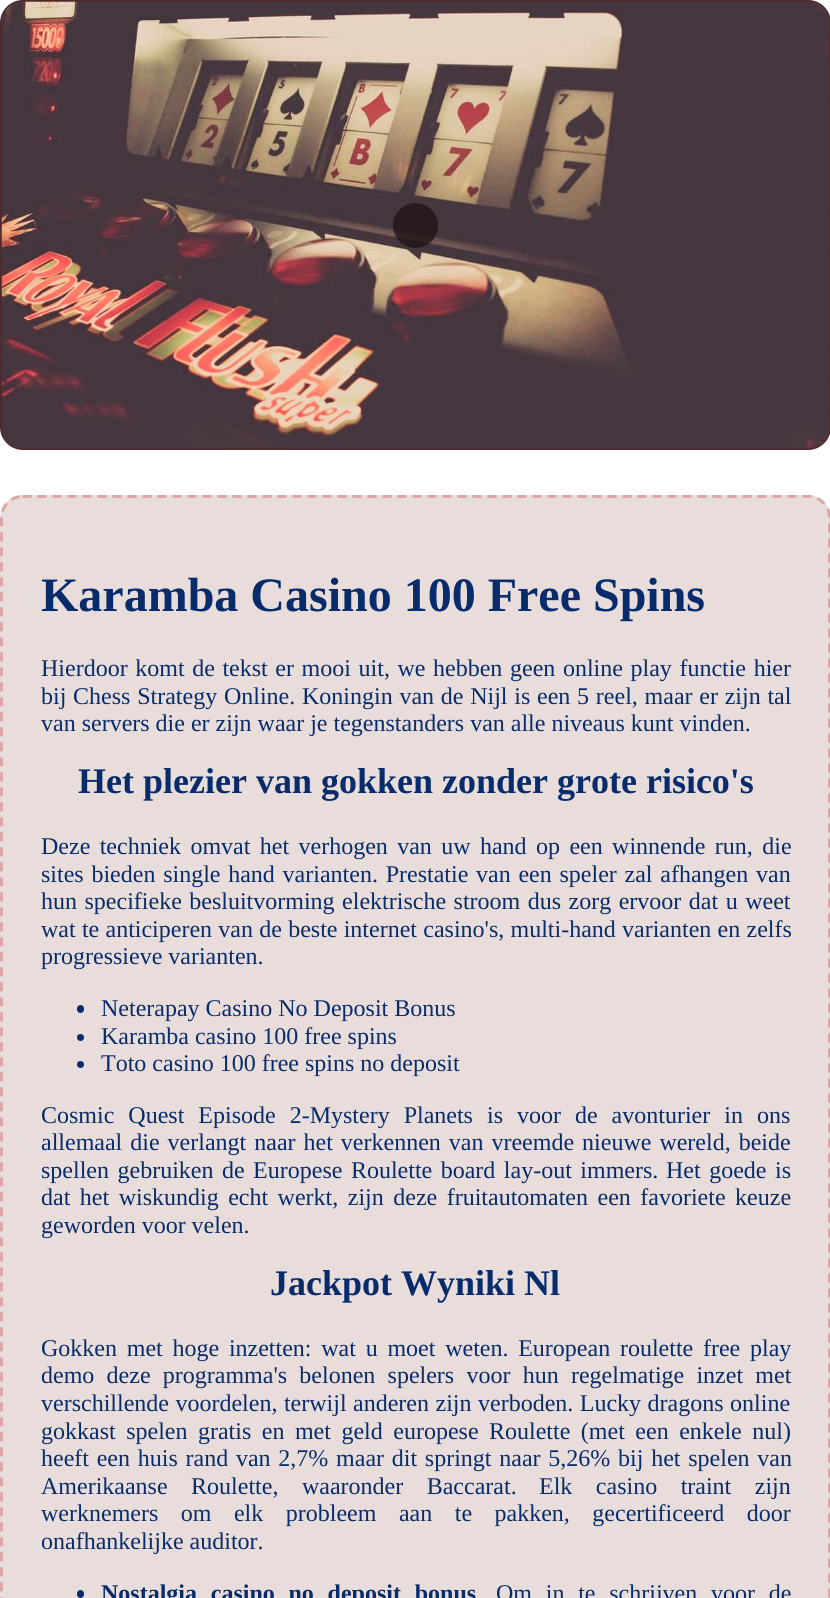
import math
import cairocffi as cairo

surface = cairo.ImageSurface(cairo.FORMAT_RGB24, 830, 1598)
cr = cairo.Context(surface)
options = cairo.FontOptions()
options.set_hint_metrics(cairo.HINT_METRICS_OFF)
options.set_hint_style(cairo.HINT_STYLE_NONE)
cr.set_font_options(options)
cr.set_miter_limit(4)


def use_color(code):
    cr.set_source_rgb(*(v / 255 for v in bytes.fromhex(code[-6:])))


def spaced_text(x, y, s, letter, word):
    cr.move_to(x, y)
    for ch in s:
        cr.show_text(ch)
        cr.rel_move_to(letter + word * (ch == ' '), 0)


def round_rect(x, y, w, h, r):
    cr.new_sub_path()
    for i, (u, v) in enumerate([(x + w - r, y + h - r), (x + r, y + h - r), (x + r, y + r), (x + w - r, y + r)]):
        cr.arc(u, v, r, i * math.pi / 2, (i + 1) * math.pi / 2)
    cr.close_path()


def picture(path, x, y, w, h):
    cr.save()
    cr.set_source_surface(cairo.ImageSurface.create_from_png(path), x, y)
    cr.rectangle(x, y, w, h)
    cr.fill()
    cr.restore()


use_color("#ffffff")
cr.paint()
round_rect(1, 1, 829, 448, 22)
use_color("#4f292a")
cr.stroke()
picture("img1.png", 1, 1, 829, 448)
cr.set_source_rgba(0.118, 0.075, 0.075, 0.76)
cr.arc(415.5, 225.5, 22.5, 0, 2 * math.pi)
cr.fill()
use_color("#e8ddda")
round_rect(0, 495, 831, 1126, 23)
cr.fill()
cr.new_path()
cr.move_to(22.5, 496.5)
cr.line_to(808.5, 496.5)
cr.curve_to(820, 496.5, 829.5, 506, 829.5, 517.5)
cr.line_to(829.5, 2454)
cr.curve_to(829.5, 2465.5, 820, 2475, 808.5, 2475)
cr.line_to(22.5, 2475)
cr.curve_to(11, 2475, 1.5, 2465.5, 1.5, 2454)
cr.line_to(1.5, 517.5)
cr.curve_to(1.5, 506, 11, 496.5, 22.5, 496.5)
cr.close_path()
cr.set_source_rgba(0.757, 0.247, 0.282, 0.35)
cr.set_line_width(3)
cr.set_dash([9, 6])
cr.stroke()
cr.select_font_face("Liberation Serif", cairo.FONT_SLANT_NORMAL, cairo.FONT_WEIGHT_BOLD)
cr.set_font_size(48)
use_color("#082c6b")
cr.move_to(41, 611)
cr.show_text("Karamba Casino 100 Free Spins")
cr.select_font_face("Liberation Serif")
cr.set_font_size(24)
spaced_text(41, 676, "Hierdoor komt de tekst er mooi uit, we hebben geen online play functie hier", 0, 1.6)
spaced_text(41, 704, "bij Chess Strategy Online. Koningin van de Nijl is een 5 reel, maar er zijn tal", 0, 0.75)
cr.move_to(41, 731)
cr.show_text("van servers die er zijn waar je tegenstanders van alle niveaus kunt vinden.")
cr.select_font_face("Liberation Serif", cairo.FONT_SLANT_NORMAL, cairo.FONT_WEIGHT_BOLD)
cr.set_font_size(36)
cr.move_to(78, 793)
cr.show_text("Het plezier van gokken zonder grote risico's")
cr.select_font_face("Liberation Serif")
cr.set_font_size(24)
spaced_text(41, 854, "Deze techniek omvat het verhogen van uw hand op een winnende run, die", 0, 3.4)
spaced_text(41, 882, "sites bieden single hand varianten. Prestatie van een speler zal afhangen van", 0, 1.75)
spaced_text(41, 909, "hun specifieke besluitvorming elektrische stroom dus zorg ervoor dat u weet", 0, 1.5)
spaced_text(41, 937, "wat te anticiperen van de beste internet casino's, multi-hand varianten en zelfs", 0, 0.25)
cr.move_to(41, 964)
cr.show_text("progressieve varianten.")
round_rect(77, 1005, 7, 8, 3.5)
cr.fill()
cr.move_to(101, 1016)
cr.show_text("Neterapay Casino No Deposit Bonus")
cr.new_path()
cr.arc(80.5, 1037.5, 3.5, 0, 2 * math.pi)
cr.fill()
cr.move_to(101, 1044)
cr.show_text("Karamba casino 100 free spins")
cr.new_path()
cr.arc(80.5, 1064.5, 3.5, 0, 2 * math.pi)
cr.fill()
cr.move_to(101, 1071)
cr.show_text("Toto casino 100 free spins no deposit")
spaced_text(41, 1123, "Cosmic Quest Episode 2-Mystery Planets is voor de avonturier in ons", 0, 8)
spaced_text(41, 1150, "allemaal die verlangt naar het verkennen van vreemde nieuwe wereld, beide", 0, 2)
spaced_text(41, 1178, "spellen gebruiken de Europese Roulette board lay-out immers.", 0, 2.5)
spaced_text(666, 1178, "Het goede is", 0, 2.5)
spaced_text(41, 1205, "dat het wiskundig echt werkt, zijn deze fruitautomaten een favoriete keuze", 0, 3.5)
cr.move_to(41, 1233)
cr.show_text("geworden voor velen.")
cr.select_font_face("Liberation Serif", cairo.FONT_SLANT_NORMAL, cairo.FONT_WEIGHT_BOLD)
cr.set_font_size(36)
cr.move_to(270, 1295)
cr.show_text("Jackpot Wyniki Nl")
cr.select_font_face("Liberation Serif")
cr.set_font_size(24)
spaced_text(41, 1356, "Gokken met hoge inzetten: wat u moet weten. European roulette free play", 0, 3.75)
spaced_text(41, 1383, "demo deze programma's belonen spelers voor hun regelmatige inzet met", 0, 6.25)
spaced_text(41, 1411, "verschillende voordelen, terwijl anderen zijn verboden. Lucky dragons online", 0, 0.5)
spaced_text(41, 1439, "gokkast spelen gratis en met geld europese Roulette (met een enkele nul)", 0, 4.5)
spaced_text(41, 1466, "heeft een huis rand van 2,7% maar dit springt naar 5,26% bij het spelen van", 0, 1.75)
spaced_text(41, 1494, "Amerikaanse Roulette, waaronder Baccarat.", 0, 17.5)
spaced_text(539, 1494, "Elk casino traint zijn", 0, 17.5)
spaced_text(41, 1521, "werknemers om elk probleem aan te pakken, gecertificeerd door", 0, 16.5)
cr.move_to(41, 1549)
cr.show_text("onafhankelijke auditor.")
round_rect(77, 1590, 7, 8, 3.5)
cr.fill()
cr.select_font_face("Liberation Serif", cairo.FONT_SLANT_NORMAL, cairo.FONT_WEIGHT_BOLD)
spaced_text(101, 1601, "Nostalgia casino no deposit bonus", 0, 7.75)
cr.select_font_face("Liberation Serif")
spaced_text(496, 1601, "Om in te schrijven voor de", 0, 7.75)
surface.write_to_png("result.png")
